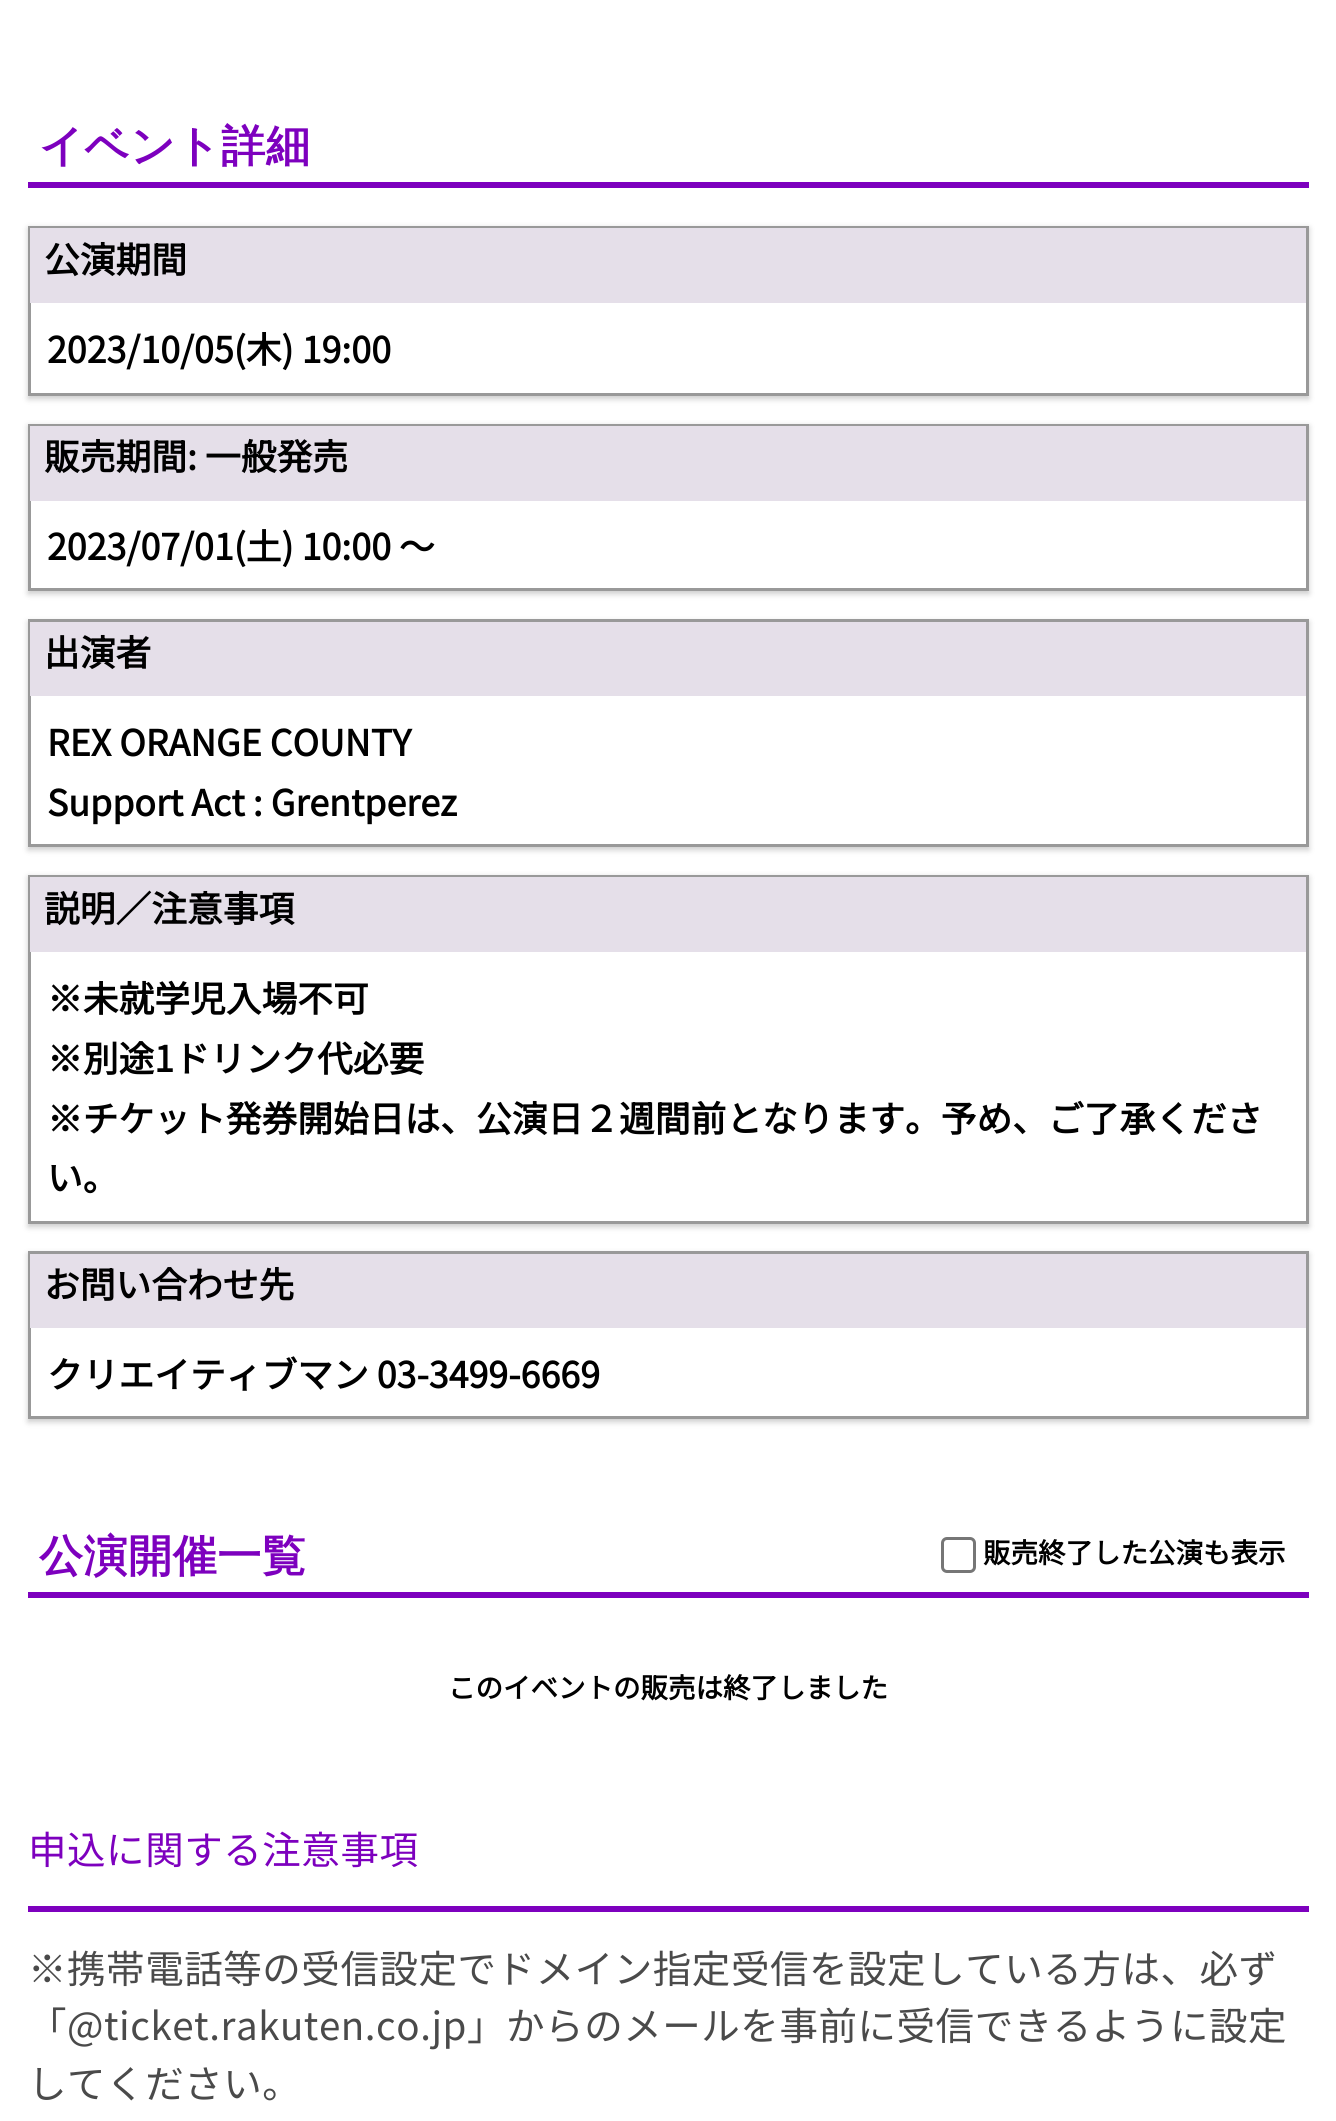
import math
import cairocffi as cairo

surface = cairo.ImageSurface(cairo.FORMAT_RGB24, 1336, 2121)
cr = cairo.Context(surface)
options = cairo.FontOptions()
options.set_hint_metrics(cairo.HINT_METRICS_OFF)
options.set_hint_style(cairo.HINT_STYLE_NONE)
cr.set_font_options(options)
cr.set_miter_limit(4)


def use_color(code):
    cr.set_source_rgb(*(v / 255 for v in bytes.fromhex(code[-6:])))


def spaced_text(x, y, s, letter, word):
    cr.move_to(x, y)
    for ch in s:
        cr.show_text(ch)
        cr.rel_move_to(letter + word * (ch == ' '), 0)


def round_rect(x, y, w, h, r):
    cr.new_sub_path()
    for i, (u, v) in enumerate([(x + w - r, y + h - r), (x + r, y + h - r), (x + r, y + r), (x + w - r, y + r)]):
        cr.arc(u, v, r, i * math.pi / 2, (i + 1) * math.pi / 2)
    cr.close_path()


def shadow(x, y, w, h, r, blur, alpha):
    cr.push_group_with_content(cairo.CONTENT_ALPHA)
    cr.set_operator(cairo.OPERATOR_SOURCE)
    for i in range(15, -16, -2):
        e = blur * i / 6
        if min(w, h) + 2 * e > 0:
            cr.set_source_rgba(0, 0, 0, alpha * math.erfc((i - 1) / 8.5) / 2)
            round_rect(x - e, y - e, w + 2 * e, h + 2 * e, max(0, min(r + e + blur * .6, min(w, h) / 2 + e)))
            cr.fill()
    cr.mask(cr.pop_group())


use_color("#ffffff")
cr.paint()
use_color("#7d00be")
cr.rectangle(28, 182, 1281, 6)
cr.fill()
cr.select_font_face("WenQuanYi Zen Hei", cairo.FONT_SLANT_NORMAL, cairo.FONT_WEIGHT_BOLD)
cr.set_font_size(44)
spaced_text(39, 161, "イベント詳細", 0.55, 0)
cr.save()
cr.set_fill_rule(cairo.FILL_RULE_EVEN_ODD)
cr.new_path()
cr.move_to(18, 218)
cr.line_to(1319, 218)
cr.line_to(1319, 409)
cr.line_to(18, 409)
cr.close_path()
cr.move_to(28, 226)
cr.line_to(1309, 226)
cr.line_to(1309, 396)
cr.line_to(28, 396)
cr.close_path()
cr.clip()
use_color("#000000")
shadow(28, 228, 1281, 171, 0, 3, 0.2)
cr.restore()
cr.rectangle(29.5, 227.5, 1278, 167)
use_color("#999999")
cr.set_line_width(3)
cr.stroke()
use_color("#e5dfe9")
cr.rectangle(30, 228, 1276, 75)
cr.fill()
cr.select_font_face("Noto Sans JP", cairo.FONT_SLANT_NORMAL, cairo.FONT_WEIGHT_BOLD)
cr.set_font_size(35.75)
use_color("#000000")
cr.move_to(44, 273)
cr.show_text("公演期間")
cr.move_to(47, 363)
cr.show_text("2023/10/05(木) 19:00")
cr.save()
cr.set_fill_rule(cairo.FILL_RULE_EVEN_ODD)
cr.new_path()
cr.move_to(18, 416)
cr.line_to(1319, 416)
cr.line_to(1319, 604)
cr.line_to(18, 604)
cr.close_path()
cr.move_to(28, 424)
cr.line_to(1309, 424)
cr.line_to(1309, 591)
cr.line_to(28, 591)
cr.close_path()
cr.clip()
use_color("#000000")
shadow(28, 426, 1281, 168, 0, 3, 0.2)
cr.restore()
cr.rectangle(29.5, 425.5, 1278, 164)
use_color("#999999")
cr.stroke()
use_color("#e5dfe9")
cr.rectangle(30, 426, 1276, 75)
cr.fill()
use_color("#000000")
cr.move_to(44, 470)
cr.show_text("販売期間: 一般発売")
cr.move_to(47, 560)
cr.show_text("2023/07/01(土) 10:00 〜")
cr.save()
cr.set_fill_rule(cairo.FILL_RULE_EVEN_ODD)
cr.new_path()
cr.move_to(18, 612)
cr.line_to(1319, 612)
cr.line_to(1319, 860)
cr.line_to(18, 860)
cr.close_path()
cr.move_to(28, 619)
cr.line_to(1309, 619)
cr.line_to(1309, 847)
cr.line_to(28, 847)
cr.close_path()
cr.clip()
use_color("#000000")
shadow(28, 622, 1281, 228, 0, 3, 0.2)
cr.restore()
cr.rectangle(29.5, 620.5, 1278, 225)
use_color("#999999")
cr.stroke()
use_color("#e5dfe9")
cr.rectangle(30, 622, 1276, 74)
cr.fill()
use_color("#000000")
cr.move_to(44, 666)
cr.show_text("出演者")
cr.move_to(47, 756)
cr.show_text("REX ORANGE COUNTY")
cr.move_to(47, 816)
cr.show_text("Support Act : Grentperez")
use_color("#000000")
shadow(28, 877, 1281, 350, 0, 3, 0.2)
use_color("#ffffff")
cr.rectangle(31, 952, 1275, 269)
cr.fill()
cr.rectangle(29.5, 876.5, 1278, 346)
use_color("#999999")
cr.stroke()
use_color("#e5dfe9")
cr.rectangle(30, 877, 1276, 75)
cr.fill()
use_color("#000000")
cr.move_to(44, 922)
cr.show_text("説明／注意事項")
cr.move_to(47, 1012)
cr.show_text("※未就学児入場不可")
cr.move_to(47, 1072)
cr.show_text("※別途1ドリンク代必要")
cr.move_to(47, 1132)
cr.show_text("※チケット発券開始日は、公演日２週間前となります。予め、ご了承くださ")
cr.move_to(47, 1191)
cr.show_text("い。")
use_color("#000000")
shadow(28, 1254, 1281, 168, 0, 3, 0.2)
use_color("#ffffff")
cr.rectangle(31, 1328, 1275, 88)
cr.fill()
cr.rectangle(29.5, 1252.5, 1278, 165)
use_color("#999999")
cr.stroke()
use_color("#e5dfe9")
cr.rectangle(30, 1254, 1276, 74)
cr.fill()
use_color("#000000")
cr.move_to(44, 1298)
cr.show_text("お問い合わせ先")
cr.move_to(47, 1388)
cr.show_text("クリエイティブマン 03-3499-6669")
use_color("#7d00be")
cr.rectangle(28, 1592, 1281, 6)
cr.fill()
cr.select_font_face("WenQuanYi Zen Hei", cairo.FONT_SLANT_NORMAL, cairo.FONT_WEIGHT_BOLD)
cr.set_font_size(44)
spaced_text(39, 1571, "公演開催一覧", 0.55, 0)
round_rect(942.5, 1538.5, 32, 33, 4.5)
use_color("#767676")
cr.stroke()
cr.select_font_face("Noto Sans JP", cairo.FONT_SLANT_NORMAL, cairo.FONT_WEIGHT_BOLD)
cr.set_font_size(27.5)
use_color("#000000")
cr.move_to(983, 1563)
cr.show_text("販売終了した公演も表示")
cr.move_to(448, 1698)
cr.show_text("このイベントの販売は終了しました")
cr.select_font_face("Noto Sans JP Thin")
cr.set_font_size(38.5)
use_color("#7d00be")
spaced_text(28, 1864, "申込に関する注意事項", 0.55, 0)
cr.rectangle(28, 1906, 1281, 6)
cr.fill()
use_color("#4a4a4a")
spaced_text(28, 1983, "※携帯電話等の受信設定でドメイン指定受信を設定している方は、必ず", 0.55, 0)
spaced_text(28, 2040, "「@ticket.rakuten.co.jp」からのメールを事前に受信できるように設定", 0.55, 0)
spaced_text(28, 2098, "してください。", 0.55, 0)
surface.write_to_png("result.png")
